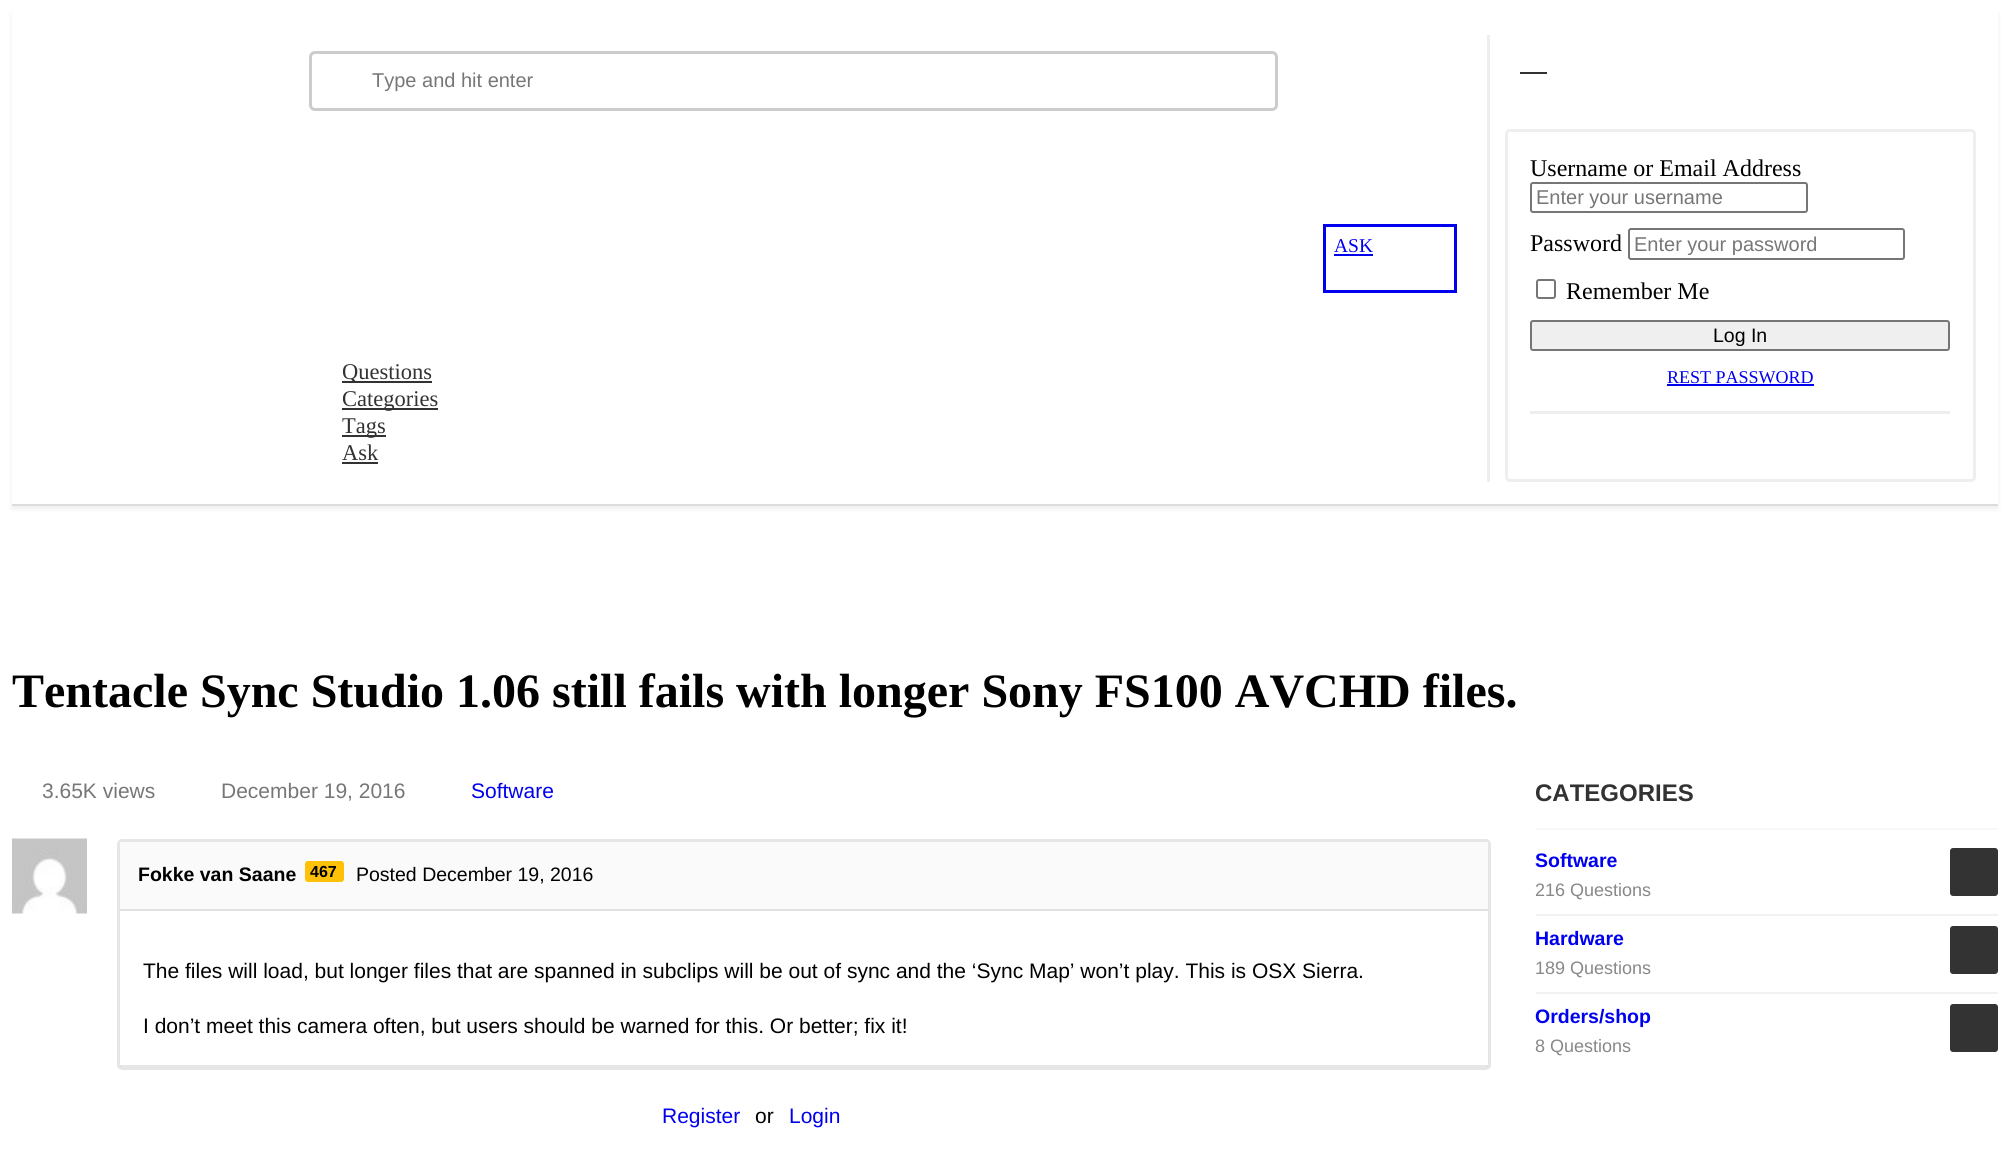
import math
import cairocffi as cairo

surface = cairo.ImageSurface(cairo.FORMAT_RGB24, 2009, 1151)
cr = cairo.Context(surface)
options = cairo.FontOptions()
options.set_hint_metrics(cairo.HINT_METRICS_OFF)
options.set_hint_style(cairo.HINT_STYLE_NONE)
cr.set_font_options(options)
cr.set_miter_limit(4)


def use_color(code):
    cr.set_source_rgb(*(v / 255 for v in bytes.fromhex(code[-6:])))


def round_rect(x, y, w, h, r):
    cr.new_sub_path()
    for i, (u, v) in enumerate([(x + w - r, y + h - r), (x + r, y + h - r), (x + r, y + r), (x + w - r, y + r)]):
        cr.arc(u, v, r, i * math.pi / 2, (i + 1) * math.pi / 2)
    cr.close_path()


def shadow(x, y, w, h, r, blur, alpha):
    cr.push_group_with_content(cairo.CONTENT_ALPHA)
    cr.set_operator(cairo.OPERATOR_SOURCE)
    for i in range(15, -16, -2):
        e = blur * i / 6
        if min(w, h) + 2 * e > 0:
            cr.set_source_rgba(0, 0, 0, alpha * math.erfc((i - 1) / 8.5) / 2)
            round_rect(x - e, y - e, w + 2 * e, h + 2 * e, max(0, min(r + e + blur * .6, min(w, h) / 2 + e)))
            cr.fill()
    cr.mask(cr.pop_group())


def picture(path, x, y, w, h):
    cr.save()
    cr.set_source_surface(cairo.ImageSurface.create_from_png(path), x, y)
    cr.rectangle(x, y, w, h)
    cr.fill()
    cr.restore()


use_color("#ffffff")
cr.paint()
use_color("#000000")
shadow(12, 15, 1986, 494, 0, 3, 0.07)
use_color("#ffffff")
cr.rectangle(12, 12, 1986, 492)
cr.fill()
use_color("#dddddd")
cr.rectangle(12, 504, 1986, 2)
cr.fill()
round_rect(310.5, 52.5, 966, 57, 4.5)
use_color("#cccccc")
cr.set_line_width(3)
cr.stroke()
cr.select_font_face("Liberation Sans")
cr.set_font_size(20)
use_color("#777777")
cr.move_to(372, 87)
cr.show_text("Type and hit enter")
use_color("#323232")
cr.rectangle(342, 381, 90, 2)
cr.fill()
cr.select_font_face("Liberation Serif")
cr.set_font_size(22.5)
cr.move_to(342, 379)
cr.show_text("Questions")
cr.rectangle(342, 408, 96, 2)
cr.fill()
cr.move_to(342, 406)
cr.show_text("Categories")
cr.rectangle(342, 435, 44, 2)
cr.fill()
cr.move_to(342, 433)
cr.show_text("Tags")
cr.move_to(342, 460)
cr.show_text("Ask")
cr.rectangle(342, 462, 36, 2)
cr.fill()
cr.rectangle(1324.5, 225.5, 131, 66)
use_color("#0000ee")
cr.stroke()
cr.set_font_size(19.5)
cr.move_to(1334, 252)
cr.show_text("ASK")
cr.rectangle(1334, 254, 39, 2)
cr.fill()
use_color("#eeeeee")
cr.rectangle(1487, 35, 3, 447)
cr.fill()
use_color("#323232")
cr.rectangle(1520, 72, 27, 2)
cr.fill()
round_rect(1506.5, 130.5, 468, 350, 3.5)
use_color("#eeeeee")
cr.stroke()
cr.set_font_size(24)
use_color("#000000")
cr.move_to(1530, 176)
cr.show_text("Username or Email Address")
round_rect(1531, 183, 276, 29, 2)
use_color("#767676")
cr.set_line_width(2)
cr.stroke()
cr.select_font_face("Liberation Sans")
cr.set_font_size(20)
use_color("#777777")
cr.move_to(1536, 204)
cr.show_text("Enter your username")
cr.select_font_face("Liberation Serif")
cr.set_font_size(24)
use_color("#000000")
cr.move_to(1530, 251)
cr.show_text("Password")
round_rect(1629, 229, 275, 30, 2)
use_color("#767676")
cr.stroke()
cr.save()
cr.rectangle(1634, 233, 265, 22)
cr.clip()
cr.select_font_face("Liberation Sans")
cr.set_font_size(20)
use_color("#777777")
cr.move_to(1634, 251)
cr.show_text("Enter your password")
cr.restore()
round_rect(1537, 280, 18, 18, 2)
cr.stroke()
use_color("#000000")
cr.move_to(1566, 299)
cr.show_text("Remember Me")
use_color("#efefef")
round_rect(1531, 321, 418, 29, 2)
cr.fill_preserve()
use_color("#767676")
cr.stroke()
cr.select_font_face("Liberation Sans")
cr.set_font_size(19.5)
use_color("#000000")
cr.move_to(1713, 342)
cr.show_text("Log In")
use_color("#eeeeee")
cr.rectangle(1530, 411, 420, 3)
cr.fill()
cr.select_font_face("Liberation Serif")
cr.set_font_size(18)
use_color("#0000ee")
cr.move_to(1667, 383)
cr.show_text("REST PASSWORD")
cr.rectangle(1667, 384, 147, 2)
cr.fill()
cr.select_font_face("Liberation Serif", cairo.FONT_SLANT_NORMAL, cairo.FONT_WEIGHT_BOLD)
cr.set_font_size(48)
use_color("#000000")
cr.move_to(12, 707)
cr.show_text("Tentacle Sync Studio 1.06 still fails with longer Sony FS100 AVCHD files.")
cr.select_font_face("Liberation Sans")
cr.set_font_size(21)
use_color("#777777")
cr.move_to(42, 798)
cr.show_text("3.65K views")
cr.move_to(221, 798)
cr.show_text("December 19, 2016")
use_color("#0000ee")
cr.move_to(471, 798)
cr.show_text("Software")
picture("img1.png", 12, 838, 75, 76)
round_rect(118.5, 840.5, 1371, 228, 3.5)
use_color("#e6e6e6")
cr.set_line_width(3)
cr.stroke()
use_color("#fafafa")
cr.rectangle(120, 842, 1368, 67)
cr.fill()
use_color("#e1e1e1")
cr.rectangle(120, 909, 1368, 2)
cr.fill()
cr.select_font_face("Liberation Sans", cairo.FONT_SLANT_NORMAL, cairo.FONT_WEIGHT_BOLD)
cr.set_font_size(19.5)
use_color("#000000")
cr.move_to(138, 881)
cr.show_text("Fokke van Saane")
use_color("#ffc107")
round_rect(305, 861, 39, 21, 3)
cr.fill()
cr.set_font_size(16)
use_color("#000000")
cr.move_to(310, 877)
cr.show_text("467")
cr.select_font_face("Liberation Sans")
cr.set_font_size(19.5)
cr.move_to(356, 881)
cr.show_text("Posted December 19, 2016")
cr.set_font_size(21)
cr.move_to(143, 978)
cr.show_text("The files will load, but longer files that are spanned in subclips will be out of sync and the ‘Sync Map’ won’t play. This is OSX Sierra.")
cr.move_to(143, 1033)
cr.show_text("I don’t meet this camera often, but users should be warned for this. Or better; fix it!")
cr.set_source_rgba(0, 0, 0, 0.1)
cr.rectangle(120, 1065, 1368, 2)
cr.fill()
use_color("#0000ee")
cr.move_to(662, 1123)
cr.show_text("Register")
use_color("#000000")
cr.move_to(755, 1123)
cr.show_text("or")
use_color("#0000ee")
cr.move_to(789, 1123)
cr.show_text("Login")
use_color("#f8f8f8")
cr.rectangle(1536, 828, 462, 2)
cr.fill()
cr.select_font_face("Liberation Sans", cairo.FONT_SLANT_NORMAL, cairo.FONT_WEIGHT_BOLD)
cr.set_font_size(24)
use_color("#323232")
cr.move_to(1535, 801)
cr.show_text("CATEGORIES")
use_color("#f1f1f1")
cr.rectangle(1536, 914, 462, 2)
cr.fill()
cr.set_font_size(19.5)
use_color("#0000ee")
cr.move_to(1535, 867)
cr.show_text("Software")
use_color("#333333")
round_rect(1950, 848, 48, 48, 3)
cr.fill()
cr.select_font_face("Liberation Sans")
cr.set_font_size(18)
use_color("#888888")
cr.move_to(1535, 896)
cr.show_text("216 Questions")
use_color("#f1f1f1")
cr.rectangle(1536, 992, 462, 2)
cr.fill()
cr.select_font_face("Liberation Sans", cairo.FONT_SLANT_NORMAL, cairo.FONT_WEIGHT_BOLD)
cr.set_font_size(19.5)
use_color("#0000ee")
cr.move_to(1535, 945)
cr.show_text("Hardware")
use_color("#333333")
round_rect(1950, 926, 48, 48, 3)
cr.fill()
cr.select_font_face("Liberation Sans")
cr.set_font_size(18)
use_color("#888888")
cr.move_to(1535, 974)
cr.show_text("189 Questions")
cr.select_font_face("Liberation Sans", cairo.FONT_SLANT_NORMAL, cairo.FONT_WEIGHT_BOLD)
cr.set_font_size(19.5)
use_color("#0000ee")
cr.move_to(1535, 1023)
cr.show_text("Orders/shop")
use_color("#333333")
round_rect(1950, 1004, 48, 48, 3)
cr.fill()
cr.select_font_face("Liberation Sans")
cr.set_font_size(18)
use_color("#888888")
cr.move_to(1535, 1052)
cr.show_text("8 Questions")
surface.write_to_png("result.png")
